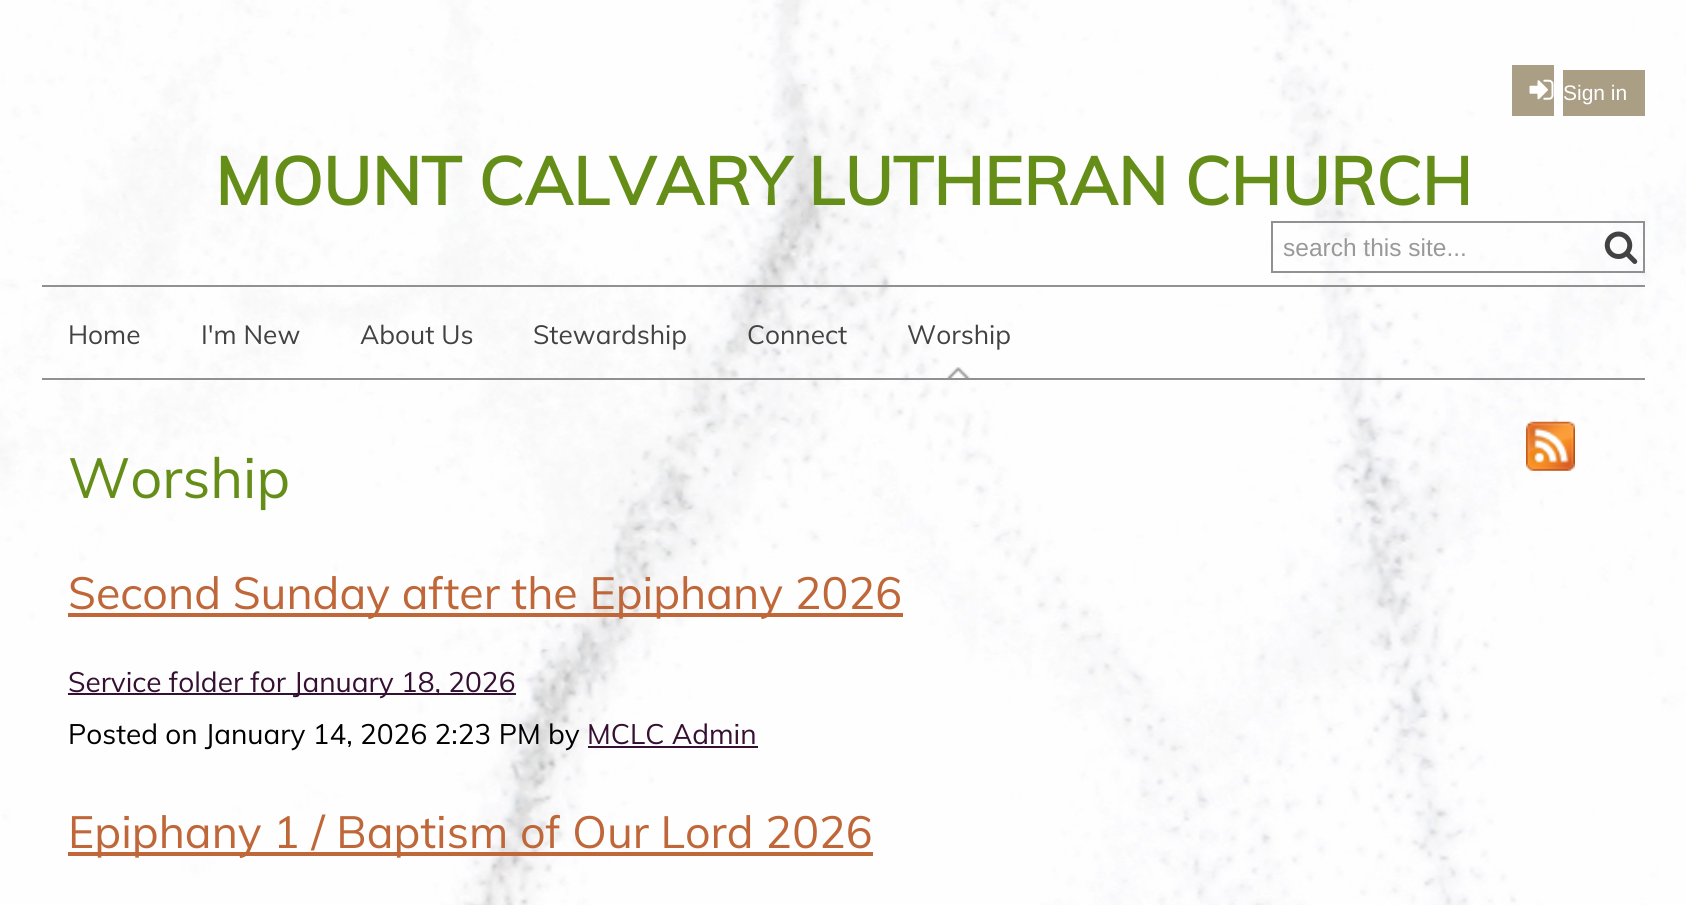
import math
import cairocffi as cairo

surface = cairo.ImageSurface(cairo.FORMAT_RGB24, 1686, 905)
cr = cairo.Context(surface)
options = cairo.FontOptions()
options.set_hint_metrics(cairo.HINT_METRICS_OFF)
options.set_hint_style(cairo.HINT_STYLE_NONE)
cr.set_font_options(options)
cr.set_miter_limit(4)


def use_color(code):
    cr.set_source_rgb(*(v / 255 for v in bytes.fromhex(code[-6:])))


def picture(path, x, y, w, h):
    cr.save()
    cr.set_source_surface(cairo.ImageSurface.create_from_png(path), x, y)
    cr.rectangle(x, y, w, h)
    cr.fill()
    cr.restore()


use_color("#ffffff")
cr.paint()
picture("img1.png", 0, 0, 1686, 905)
use_color("#aa9e85")
cr.rectangle(1512, 65, 42, 51)
cr.fill()
picture("img2.png", 1529, 79, 25, 21)
cr.rectangle(1563, 70, 82, 46)
cr.fill()
cr.select_font_face("Liberation Sans")
cr.set_font_size(21)
use_color("#ffffff")
cr.move_to(1563, 100)
cr.show_text("Sign in")
cr.select_font_face("Muli", cairo.FONT_SLANT_NORMAL, cairo.FONT_WEIGHT_BOLD)
cr.set_font_size(66.5)
use_color("#658e18")
cr.move_to(215, 205)
cr.show_text("MOUNT CALVARY LUTHERAN CHURCH")
cr.set_source_rgba(1, 1, 1, 0.3)
cr.rectangle(1287, 223, 86, 48)
cr.fill()
cr.rectangle(1272, 222, 372, 50)
use_color("#919191")
cr.stroke()
cr.select_font_face("Liberation Sans")
cr.set_font_size(24.5)
use_color("#999999")
cr.move_to(1283, 256)
cr.show_text("search this site...")
picture("img3.png", 1604, 231, 34, 33)
use_color("#919191")
cr.rectangle(42, 285, 1603, 2)
cr.fill()
cr.rectangle(42, 378, 1603, 2)
cr.fill()
cr.select_font_face("Muli")
cr.set_font_size(26.25)
use_color("#424242")
cr.move_to(68, 344)
cr.show_text("Home")
cr.move_to(201, 344)
cr.show_text("I'm New")
cr.move_to(360, 344)
cr.show_text("About Us")
cr.move_to(533, 344)
cr.show_text("Stewardship")
cr.move_to(747, 344)
cr.show_text("Connect")
picture("img4.png", 946, 367, 24, 11)
cr.move_to(907, 344)
cr.show_text("Worship")
picture("img5.png", 1526, 421, 49, 50)
cr.set_font_size(56)
use_color("#658e18")
cr.move_to(68, 498)
cr.show_text("Worship")
use_color("#bf6739")
cr.rectangle(68, 613, 835, 4)
cr.fill()
cr.set_font_size(44.75)
cr.move_to(68, 609)
cr.show_text("Second Sunday after the Epiphany 2026")
use_color("#361032")
cr.rectangle(68, 693, 448, 2)
cr.fill()
cr.set_font_size(28)
cr.move_to(68, 692)
cr.show_text("Service folder for January 18, 2026")
use_color("#000000")
cr.move_to(68, 744)
cr.show_text("Posted on January 14, 2026 2:23 PM by")
use_color("#361032")
cr.move_to(587, 744)
cr.show_text("MCLC Admin")
cr.rectangle(588, 746, 170, 2)
cr.fill()
use_color("#bf6739")
cr.rectangle(68, 852, 805, 4)
cr.fill()
cr.set_font_size(44.75)
cr.move_to(68, 848)
cr.show_text("Epiphany 1 / Baptism of Our Lord 2026")
surface.write_to_png("result.png")
